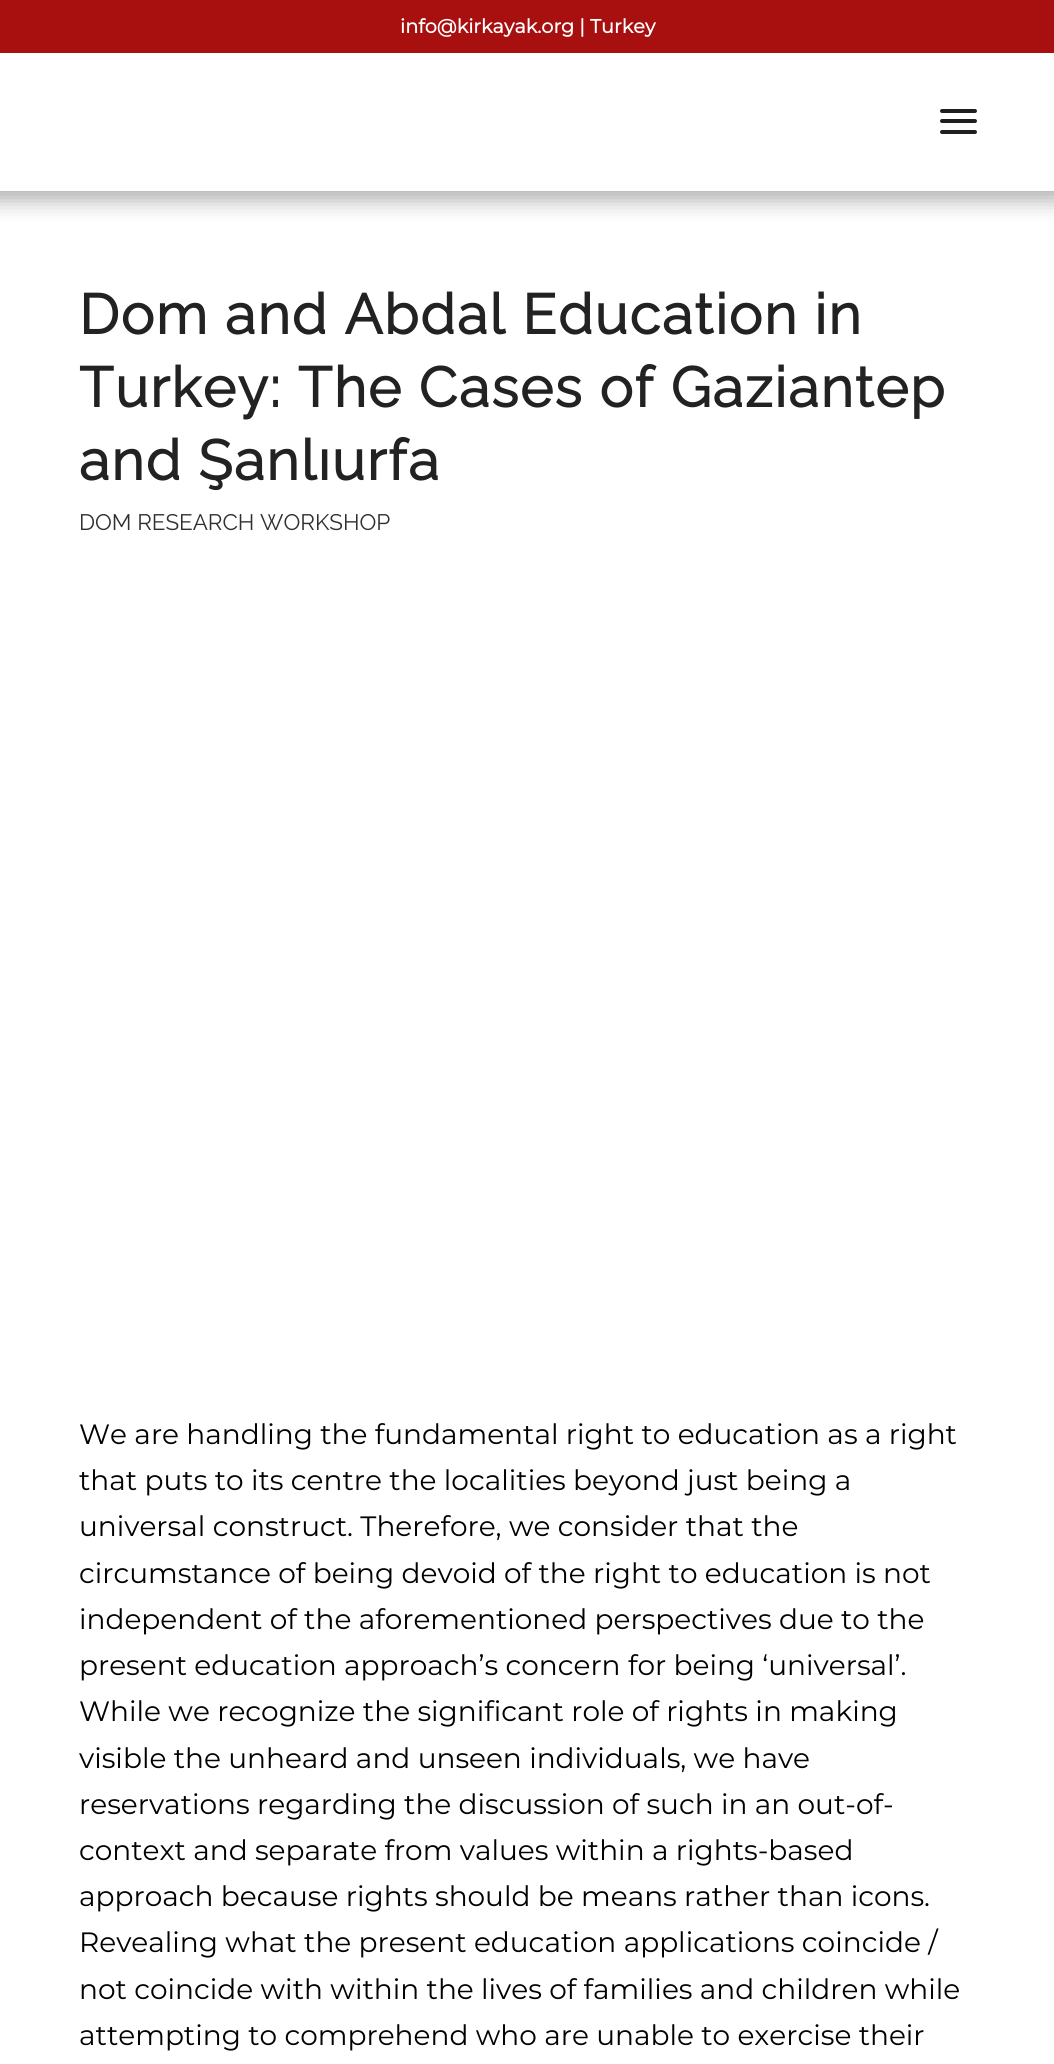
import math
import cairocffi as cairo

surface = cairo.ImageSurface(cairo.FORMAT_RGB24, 1054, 2064)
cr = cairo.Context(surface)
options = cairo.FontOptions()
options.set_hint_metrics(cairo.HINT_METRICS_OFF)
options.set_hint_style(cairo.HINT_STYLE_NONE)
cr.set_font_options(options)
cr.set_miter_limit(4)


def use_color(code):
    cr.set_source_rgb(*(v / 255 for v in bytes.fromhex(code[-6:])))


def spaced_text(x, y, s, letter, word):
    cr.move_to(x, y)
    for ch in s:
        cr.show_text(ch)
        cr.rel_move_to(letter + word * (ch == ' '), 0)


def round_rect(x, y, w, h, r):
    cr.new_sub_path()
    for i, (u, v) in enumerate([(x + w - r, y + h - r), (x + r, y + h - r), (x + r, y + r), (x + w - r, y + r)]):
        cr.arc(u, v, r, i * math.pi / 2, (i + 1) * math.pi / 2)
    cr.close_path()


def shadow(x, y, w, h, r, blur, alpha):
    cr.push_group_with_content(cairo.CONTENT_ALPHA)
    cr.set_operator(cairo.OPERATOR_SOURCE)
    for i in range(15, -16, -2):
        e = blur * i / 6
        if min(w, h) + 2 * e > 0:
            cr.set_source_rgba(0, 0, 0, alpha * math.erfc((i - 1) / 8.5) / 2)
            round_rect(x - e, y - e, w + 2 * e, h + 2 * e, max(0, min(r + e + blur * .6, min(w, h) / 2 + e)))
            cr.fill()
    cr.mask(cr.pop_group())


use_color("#ffffff")
cr.paint()
use_color("#000000")
shadow(-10, -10, 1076, 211, 0, 10.5, 0.3)
use_color("#a81010")
cr.rectangle(0, 0, 1054, 53)
cr.fill()
cr.select_font_face("Montserrat", cairo.FONT_SLANT_NORMAL, cairo.FONT_WEIGHT_BOLD)
cr.set_font_size(19.25)
use_color("#ffffff")
cr.move_to(400, 33)
cr.show_text("info@kirkayak.org | Turkey")
cr.rectangle(0, 53, 1054, 138)
cr.fill()
use_color("#1f1f1f")
round_rect(940, 119, 37, 4, 2)
cr.fill()
round_rect(940, 109, 37, 4, 2)
cr.fill()
round_rect(940, 130, 37, 4, 2)
cr.fill()
cr.select_font_face("Raleway", cairo.FONT_SLANT_NORMAL, cairo.FONT_WEIGHT_BOLD)
cr.set_font_size(56)
use_color("#222222")
spaced_text(79, 334, "Dom and Abdal Education in", 1.75, 0)
spaced_text(79, 407, "Turkey: The Cases of Gaziantep", 1.75, 0)
spaced_text(79, 480, "and Şanlıurfa", 1.75, 0)
cr.select_font_face("Raleway Thin")
cr.set_font_size(22.4)
use_color("#303030")
cr.move_to(79, 530)
cr.show_text("DOM RESEARCH WORKSHOP")
cr.select_font_face("Montserrat Thin")
cr.set_font_size(28)
use_color("#000000")
cr.move_to(79, 1444)
cr.show_text("We are handling the fundamental right to education as a right")
cr.move_to(79, 1490)
cr.show_text("that puts to its centre the localities beyond just being a")
cr.move_to(79, 1536)
cr.show_text("universal construct. Therefore, we consider that the")
cr.move_to(79, 1583)
cr.show_text("circumstance of being devoid of the right to education is not")
cr.move_to(79, 1629)
cr.show_text("independent of the aforementioned perspectives due to the")
cr.move_to(79, 1675)
cr.show_text("present education approach’s concern for being ‘universal’.")
cr.move_to(79, 1721)
cr.show_text("While we recognize the significant role of rights in making")
cr.move_to(79, 1768)
cr.show_text("visible the unheard and unseen individuals, we have")
cr.move_to(79, 1814)
cr.show_text("reservations regarding the discussion of such in an out-of-")
cr.move_to(79, 1860)
cr.show_text("context and separate from values within a rights-based")
cr.move_to(79, 1906)
cr.show_text("approach because rights should be means rather than icons.")
cr.move_to(79, 1952)
cr.show_text("Revealing what the present education applications coincide /")
cr.move_to(79, 1999)
cr.show_text("not coincide with within the lives of families and children while")
cr.move_to(79, 2045)
cr.show_text("attempting to comprehend who are unable to exercise their")
surface.write_to_png("result.png")
